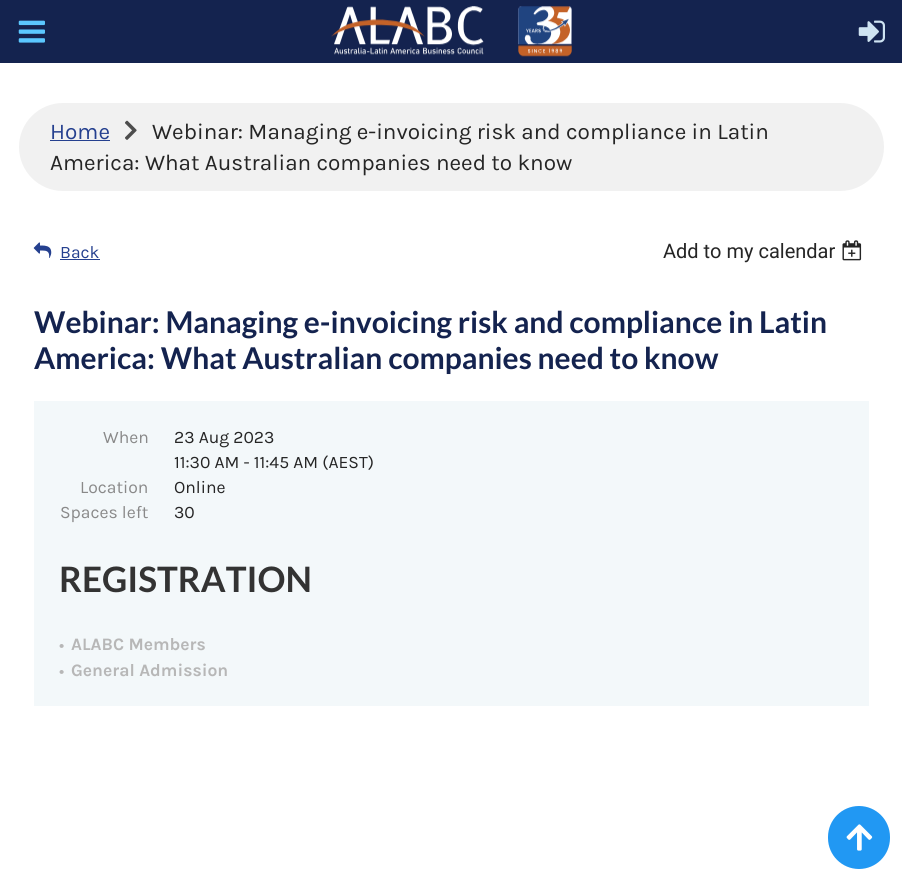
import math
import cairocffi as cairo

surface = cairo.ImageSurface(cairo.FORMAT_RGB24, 902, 881)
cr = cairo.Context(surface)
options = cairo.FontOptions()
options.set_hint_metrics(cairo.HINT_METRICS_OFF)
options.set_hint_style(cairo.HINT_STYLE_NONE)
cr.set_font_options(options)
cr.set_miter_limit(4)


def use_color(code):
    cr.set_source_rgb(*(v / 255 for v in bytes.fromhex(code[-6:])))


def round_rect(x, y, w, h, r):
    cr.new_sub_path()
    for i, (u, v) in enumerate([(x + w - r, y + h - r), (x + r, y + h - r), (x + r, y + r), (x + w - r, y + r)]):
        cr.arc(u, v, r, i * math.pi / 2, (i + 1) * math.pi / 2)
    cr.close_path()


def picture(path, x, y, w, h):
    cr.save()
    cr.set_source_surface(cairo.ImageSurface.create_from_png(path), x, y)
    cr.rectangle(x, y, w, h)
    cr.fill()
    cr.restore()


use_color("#ffffff")
cr.paint()
use_color("#14234f")
cr.rectangle(0, 0, 902, 63)
cr.fill()
picture("img1.png", 18, 20, 27, 23)
picture("img2.png", 331, 6, 241, 51)
picture("img3.png", 858, 20, 27, 23)
use_color("#f1f1f1")
round_rect(19, 103, 865, 88, 44)
cr.fill()
picture("img4.png", 125, 120, 12, 20)
cr.select_font_face("Karla")
cr.set_font_size(22.5)
use_color("#252525")
cr.move_to(152, 139)
cr.show_text("Webinar: Managing e-invoicing risk and compliance in Latin")
cr.move_to(50, 170)
cr.show_text("America: What Australian companies need to know")
use_color("#25408f")
cr.move_to(50, 139)
cr.show_text("Home")
cr.rectangle(50, 140, 60, 1)
cr.fill()
picture("img5.png", 33, 242, 19, 16)
cr.set_font_size(17.5)
cr.move_to(60, 258)
cr.show_text("Back")
cr.rectangle(60, 259, 40, 1)
cr.fill()
cr.select_font_face("Roboto")
cr.set_font_size(20)
use_color("#252525")
cr.move_to(663, 258)
cr.show_text("Add to my calendar")
picture("img6.png", 842, 240, 20, 21)
cr.select_font_face("Lato", cairo.FONT_SLANT_NORMAL, cairo.FONT_WEIGHT_BOLD)
cr.set_font_size(30)
use_color("#14234f")
cr.move_to(34, 333)
cr.show_text("Webinar: Managing e-invoicing risk and compliance in Latin")
cr.move_to(34, 369)
cr.show_text("America: What Australian companies need to know")
use_color("#f3f8fa")
cr.rectangle(34, 401, 835, 305)
cr.fill()
cr.select_font_face("Karla")
cr.set_font_size(17.5)
use_color("#898989")
cr.move_to(103, 443)
cr.show_text("When")
use_color("#252525")
cr.move_to(174, 443)
cr.show_text("23 Aug 2023")
cr.move_to(174, 468)
cr.show_text("11:30 AM - 11:45 AM (AEST)")
use_color("#898989")
cr.move_to(80, 493)
cr.show_text("Location")
use_color("#252525")
cr.move_to(174, 493)
cr.show_text("Online")
use_color("#898989")
cr.move_to(60, 518)
cr.show_text("Spaces left")
use_color("#252525")
cr.move_to(174, 518)
cr.show_text("30")
cr.select_font_face("Lato", cairo.FONT_SLANT_NORMAL, cairo.FONT_WEIGHT_BOLD)
cr.set_font_size(35)
use_color("#333333")
cr.move_to(59, 592)
cr.show_text("REGISTRATION")
cr.select_font_face("Karla")
cr.set_font_size(19)
use_color("#b7b7b7")
cr.move_to(59, 651)
cr.show_text("•")
cr.select_font_face("Karla", cairo.FONT_SLANT_NORMAL, cairo.FONT_WEIGHT_BOLD)
cr.set_font_size(17.5)
cr.move_to(71, 650)
cr.show_text("ALABC Members")
cr.select_font_face("Karla")
cr.set_font_size(19)
cr.move_to(59, 677)
cr.show_text("•")
cr.select_font_face("Karla", cairo.FONT_SLANT_NORMAL, cairo.FONT_WEIGHT_BOLD)
cr.set_font_size(17.5)
cr.move_to(71, 676)
cr.show_text("General Admission")
use_color("#2198f3")
round_rect(828, 806, 62, 63, 31)
cr.fill()
picture("img7.png", 846, 824, 27, 27)
surface.write_to_png("result.png")
